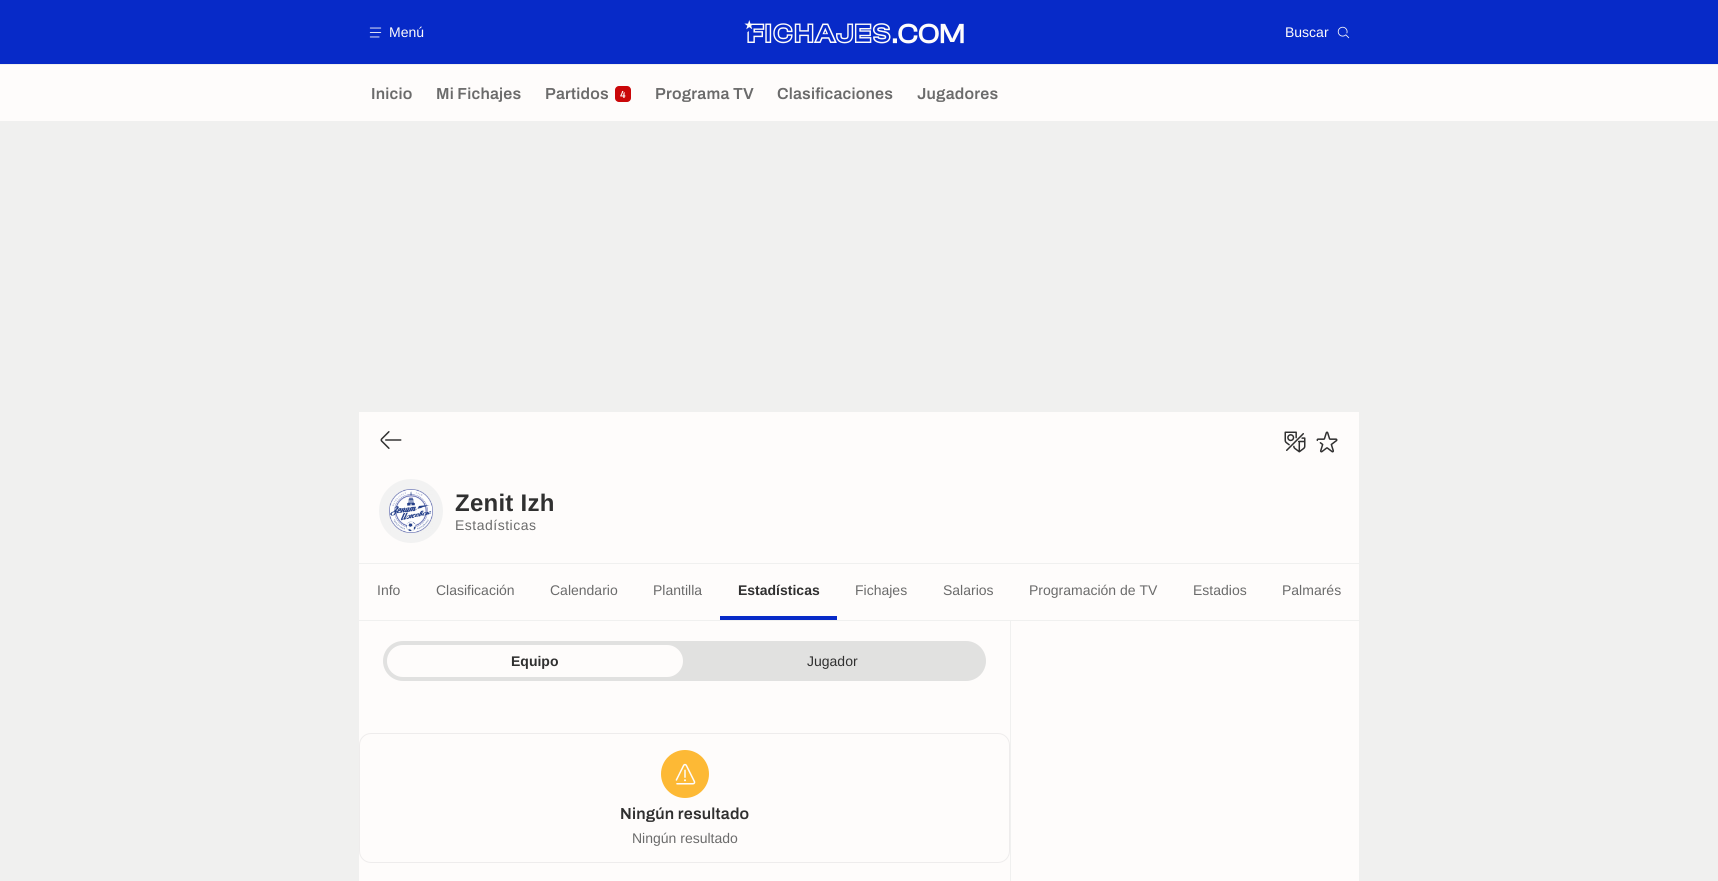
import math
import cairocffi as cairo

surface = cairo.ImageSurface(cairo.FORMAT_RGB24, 1718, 881)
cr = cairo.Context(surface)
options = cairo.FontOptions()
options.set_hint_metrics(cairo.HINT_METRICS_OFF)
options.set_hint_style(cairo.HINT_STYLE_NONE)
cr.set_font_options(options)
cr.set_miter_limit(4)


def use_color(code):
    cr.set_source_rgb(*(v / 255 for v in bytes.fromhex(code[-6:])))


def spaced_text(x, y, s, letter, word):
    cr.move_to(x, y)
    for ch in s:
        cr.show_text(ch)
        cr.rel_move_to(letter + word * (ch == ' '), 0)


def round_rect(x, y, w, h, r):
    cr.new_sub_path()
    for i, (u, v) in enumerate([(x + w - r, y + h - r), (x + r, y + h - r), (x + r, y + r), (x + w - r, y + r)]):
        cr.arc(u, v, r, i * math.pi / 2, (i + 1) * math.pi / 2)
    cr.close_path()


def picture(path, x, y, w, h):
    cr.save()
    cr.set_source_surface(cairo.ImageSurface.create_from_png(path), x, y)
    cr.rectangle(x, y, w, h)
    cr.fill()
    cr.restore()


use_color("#f0f0ef")
cr.paint()
use_color("#072ac8")
cr.rectangle(0, 0, 1718, 64)
cr.fill()
picture("img1.png", 369, 27, 13, 11)
cr.select_font_face("Liberation Sans")
cr.set_font_size(14)
use_color("#fefcfb")
cr.move_to(389, 37)
cr.show_text("Menú")
picture("img2.png", 744, 20, 220, 24)
cr.move_to(1285, 37)
cr.show_text("Buscar")
picture("img3.png", 1337, 26, 13, 13)
cr.rectangle(0, 65, 1718, 56)
cr.fill()
cr.select_font_face("Archivo SemiBold")
cr.set_font_size(16)
use_color("#6b6b6b")
spaced_text(371, 99, "Inicio", 0.2, 0)
spaced_text(436, 99, "Mi Fichajes", 0.2, 0)
spaced_text(545, 99, "Partidos", 0.2, 0)
use_color("#ca0709")
round_rect(615, 86, 16, 16, 4)
cr.fill()
cr.set_font_size(10)
use_color("#fefcfb")
spaced_text(620, 98, "4", 0.2, 0)
cr.set_font_size(16)
use_color("#6b6b6b")
spaced_text(655, 99, "Programa TV", 0.2, 0)
spaced_text(777, 99, "Clasificaciones", 0.2, 0)
spaced_text(917, 99, "Jugadores", 0.2, 0)
use_color("#fefcfb")
cr.rectangle(359, 412, 1000, 151)
cr.fill()
picture("img4.png", 380, 431, 22, 18)
picture("img5.png", 1284, 431, 22, 22)
picture("img6.png", 1316, 431, 22, 22)
use_color("#f2f2f2")
cr.arc(411, 511, 32, 0, 2 * math.pi)
cr.fill()
picture("img7.png", 389, 489, 44, 44)
cr.select_font_face("Liberation Sans", cairo.FONT_SLANT_NORMAL, cairo.FONT_WEIGHT_BOLD)
cr.set_font_size(24)
use_color("#303030")
spaced_text(455, 511, "Zenit Izh", 0.25, 0)
cr.select_font_face("Liberation Sans")
cr.set_font_size(14)
use_color("#6b6b6b")
spaced_text(455, 530, "Estadísticas", 0.5, 0)
use_color("#fefcfb")
cr.rectangle(359, 564, 1000, 56)
cr.fill()
use_color("#6b6b6b")
cr.move_to(377, 595)
cr.show_text("Info")
cr.move_to(436, 595)
cr.show_text("Clasificación")
cr.move_to(550, 595)
cr.show_text("Calendario")
cr.move_to(653, 595)
cr.show_text("Plantilla")
cr.select_font_face("Liberation Sans", cairo.FONT_SLANT_NORMAL, cairo.FONT_WEIGHT_BOLD)
use_color("#303030")
cr.move_to(738, 595)
cr.show_text("Estadísticas")
cr.select_font_face("Liberation Sans")
use_color("#6b6b6b")
cr.move_to(855, 595)
cr.show_text("Fichajes")
cr.move_to(943, 595)
cr.show_text("Salarios")
cr.move_to(1029, 595)
cr.show_text("Programación de TV")
cr.move_to(1193, 595)
cr.show_text("Estadios")
cr.move_to(1282, 595)
cr.show_text("Palmarés")
use_color("#072ac8")
cr.rectangle(720, 616, 117, 4)
cr.fill()
use_color("#fefcfb")
cr.rectangle(359, 621, 1000, 260)
cr.fill()
use_color("#e1e1e0")
round_rect(383, 641, 603, 40, 20)
cr.fill()
use_color("#fefcfb")
round_rect(387, 645, 296, 32, 16)
cr.fill()
cr.select_font_face("Liberation Sans", cairo.FONT_SLANT_NORMAL, cairo.FONT_WEIGHT_BOLD)
use_color("#303030")
cr.move_to(511, 666)
cr.show_text("Equipo")
cr.select_font_face("Liberation Sans")
cr.move_to(807, 666)
cr.show_text("Jugador")
round_rect(359.5, 733.5, 650, 129, 11.5)
use_color("#eeecec")
cr.set_line_width(1)
cr.stroke()
use_color("#fdb935")
cr.arc(685, 774, 24, 0, 2 * math.pi)
cr.fill()
picture("img8.png", 675, 763, 21, 22)
cr.select_font_face("Archivo SemiBold")
cr.set_font_size(16)
use_color("#303030")
spaced_text(620, 819, "Ningún resultado", 0.2, 0)
cr.select_font_face("Liberation Sans")
cr.set_font_size(14)
use_color("#6b6b6b")
cr.move_to(632, 843)
cr.show_text("Ningún resultado")
use_color("#f0f0ef")
cr.rectangle(1010, 621, 1, 260)
cr.fill()
surface.write_to_png("result.png")
